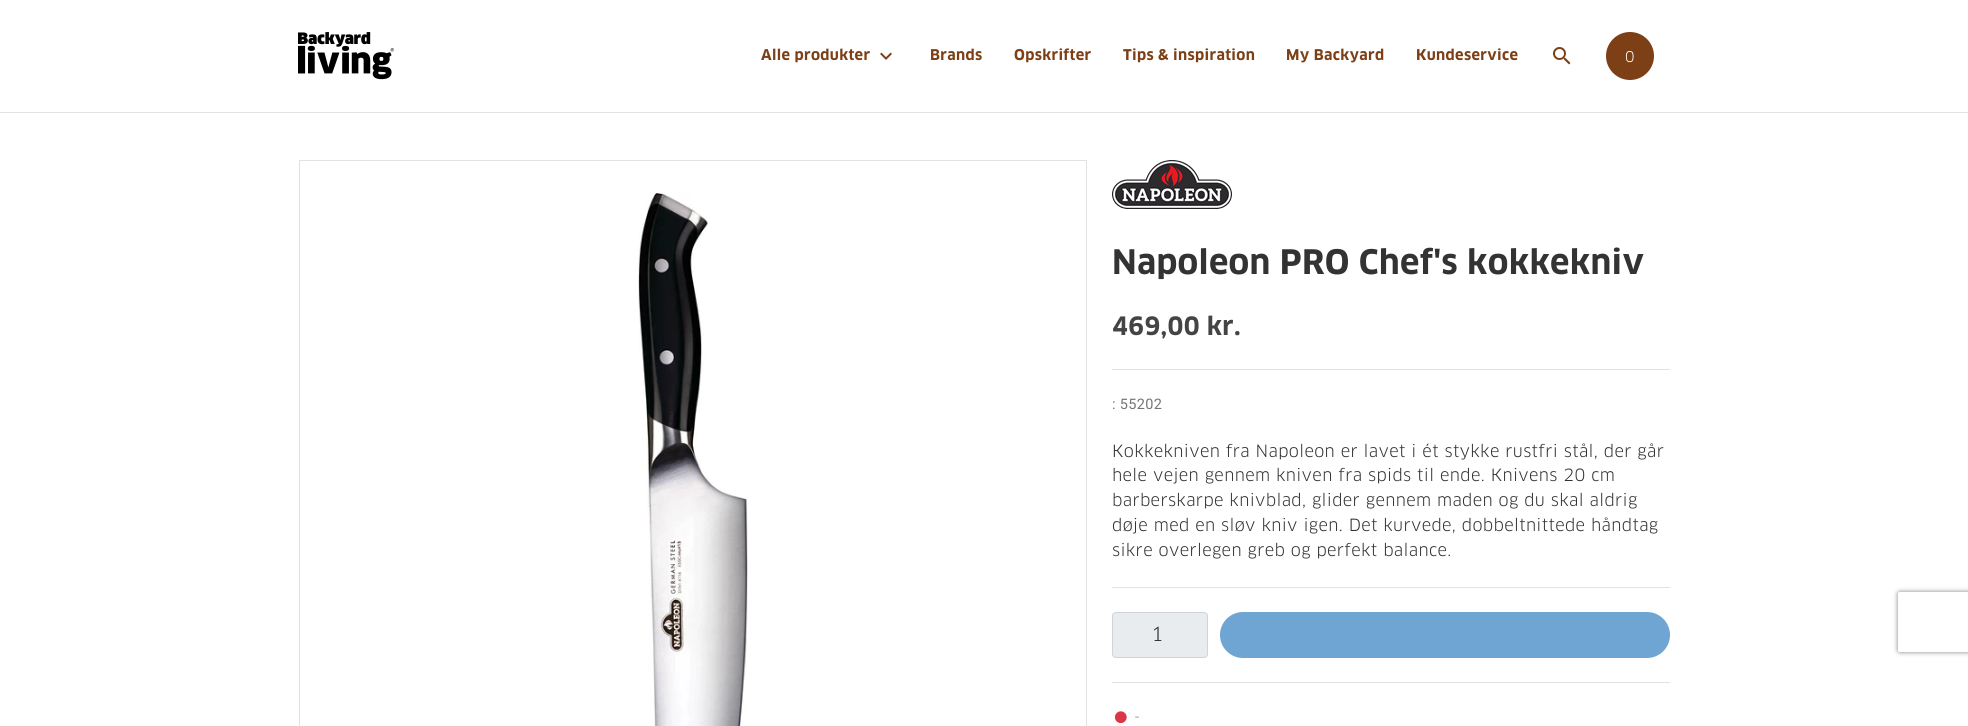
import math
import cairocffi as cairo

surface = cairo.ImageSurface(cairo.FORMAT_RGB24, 1968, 726)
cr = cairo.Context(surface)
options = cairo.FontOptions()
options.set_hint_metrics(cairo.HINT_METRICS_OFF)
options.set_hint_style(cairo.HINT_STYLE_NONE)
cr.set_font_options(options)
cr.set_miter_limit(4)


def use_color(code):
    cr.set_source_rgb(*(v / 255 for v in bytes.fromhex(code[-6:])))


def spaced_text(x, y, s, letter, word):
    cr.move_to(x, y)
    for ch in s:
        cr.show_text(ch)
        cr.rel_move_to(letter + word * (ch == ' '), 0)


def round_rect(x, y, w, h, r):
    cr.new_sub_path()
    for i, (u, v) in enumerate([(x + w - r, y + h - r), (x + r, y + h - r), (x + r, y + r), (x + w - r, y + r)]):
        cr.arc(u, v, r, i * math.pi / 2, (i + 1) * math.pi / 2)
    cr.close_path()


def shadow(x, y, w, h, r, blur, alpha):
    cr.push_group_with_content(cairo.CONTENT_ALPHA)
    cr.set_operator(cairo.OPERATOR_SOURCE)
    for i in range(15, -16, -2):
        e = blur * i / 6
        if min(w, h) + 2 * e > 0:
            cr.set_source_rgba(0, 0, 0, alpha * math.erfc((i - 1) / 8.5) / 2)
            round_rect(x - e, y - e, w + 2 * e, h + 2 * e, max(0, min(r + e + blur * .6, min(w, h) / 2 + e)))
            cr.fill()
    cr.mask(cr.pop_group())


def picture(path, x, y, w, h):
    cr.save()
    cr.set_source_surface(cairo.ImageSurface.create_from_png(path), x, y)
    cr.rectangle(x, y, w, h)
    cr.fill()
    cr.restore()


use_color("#ffffff")
cr.paint()
use_color("#e2e2e2")
cr.rectangle(0, 112, 1968, 1)
cr.fill()
picture("img1.png", 298, 32, 96, 48)
cr.select_font_face("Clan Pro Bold", cairo.FONT_SLANT_NORMAL, cairo.FONT_WEIGHT_BOLD)
cr.set_font_size(14.5)
use_color("#7d4016")
spaced_text(761, 60, "Alle produkter", 0.33, 0)
picture("img2.png", 880, 52, 12, 8)
spaced_text(930, 60, "Brands", 0.33, 0)
spaced_text(1014, 60, "Opskrifter", 0.33, 0)
spaced_text(1123, 60, "Tips & inspiration", 0.33, 0)
spaced_text(1286, 60, "My Backyard", 0.33, 0)
spaced_text(1416, 60, "Kundeservice", 0.33, 0)
picture("img3.png", 1553, 47, 18, 18)
cr.arc(1630, 56, 24, 0, 2 * math.pi)
cr.fill()
cr.select_font_face("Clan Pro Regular")
use_color("#ffffff")
cr.move_to(1625, 62)
cr.show_text("0")
cr.rectangle(299.5, 160.5, 787, 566)
use_color("#e2e2e2")
cr.set_line_width(1)
cr.stroke()
picture("img4.png", 638, 193, 110, 533)
picture("img5.png", 1112, 160, 120, 49)
cr.select_font_face("Clan Pro Bold", cairo.FONT_SLANT_NORMAL, cairo.FONT_WEIGHT_BOLD)
cr.set_font_size(33)
use_color("#333333")
spaced_text(1112, 274, "Napoleon PRO Chef's kokkekniv", 0.33, 0)
cr.set_font_size(24.75)
use_color("#444444")
spaced_text(1112, 335, "469,00 kr.", 0.33, 0)
use_color("#e2e2e2")
cr.rectangle(1112, 369, 558, 1)
cr.fill()
cr.select_font_face("Roboto")
cr.set_font_size(14.5)
use_color("#757575")
spaced_text(1112, 409, ": 55202", 0.33, 0)
cr.select_font_face("Clan Pro Regular")
cr.set_font_size(16.5)
use_color("#333333")
spaced_text(1112, 457, "Kokkekniven fra Napoleon er lavet i ét stykke rustfri stål, der går", 0.33, 0)
spaced_text(1112, 481, "hele vejen gennem kniven fra spids til ende. Knivens 20 cm", 0.33, 0)
spaced_text(1112, 506, "barberskarpe knivblad, glider gennem maden og du skal aldrig", 0.33, 0)
spaced_text(1112, 531, "døje med en sløv kniv igen. Det kurvede, dobbeltnittede håndtag", 0.33, 0)
spaced_text(1112, 556, "sikre overlegen greb og perfekt balance.", 0.33, 0)
use_color("#e2e2e2")
cr.rectangle(1112, 587, 558, 1)
cr.fill()
use_color("#e9ecef")
round_rect(1112.5, 612.5, 95, 45, 3.5)
cr.fill_preserve()
use_color("#ced4da")
cr.stroke()
cr.set_font_size(19)
use_color("#333333")
cr.move_to(1151, 641)
cr.show_text("1")
use_color("#6fa5d3")
round_rect(1221, 613, 448, 44, 22)
cr.fill_preserve()
cr.set_line_width(2)
cr.stroke()
use_color("#e2e2e2")
cr.rectangle(1112, 682, 558, 1)
cr.fill()
picture("img6.png", 1114, 711, 13, 13)
cr.set_font_size(14.5)
use_color("#757575")
spaced_text(1134, 722, "-", 0.33, 0)
cr.save()
cr.set_fill_rule(cairo.FILL_RULE_EVEN_ODD)
cr.new_path()
cr.move_to(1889, 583)
cr.line_to(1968, 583)
cr.line_to(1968, 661)
cr.line_to(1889, 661)
cr.close_path()
cr.move_to(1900, 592)
cr.line_to(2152, 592)
cr.curve_to(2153, 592, 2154, 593, 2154, 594)
cr.line_to(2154, 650)
cr.curve_to(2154, 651, 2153, 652, 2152, 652)
cr.line_to(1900, 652)
cr.curve_to(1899, 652, 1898, 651, 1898, 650)
cr.line_to(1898, 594)
cr.curve_to(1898, 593, 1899, 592, 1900, 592)
cr.close_path()
cr.clip()
use_color("#808080")
shadow(1898, 592, 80, 60, 2, 2.5, 1)
cr.restore()
surface.write_to_png("result.png")
